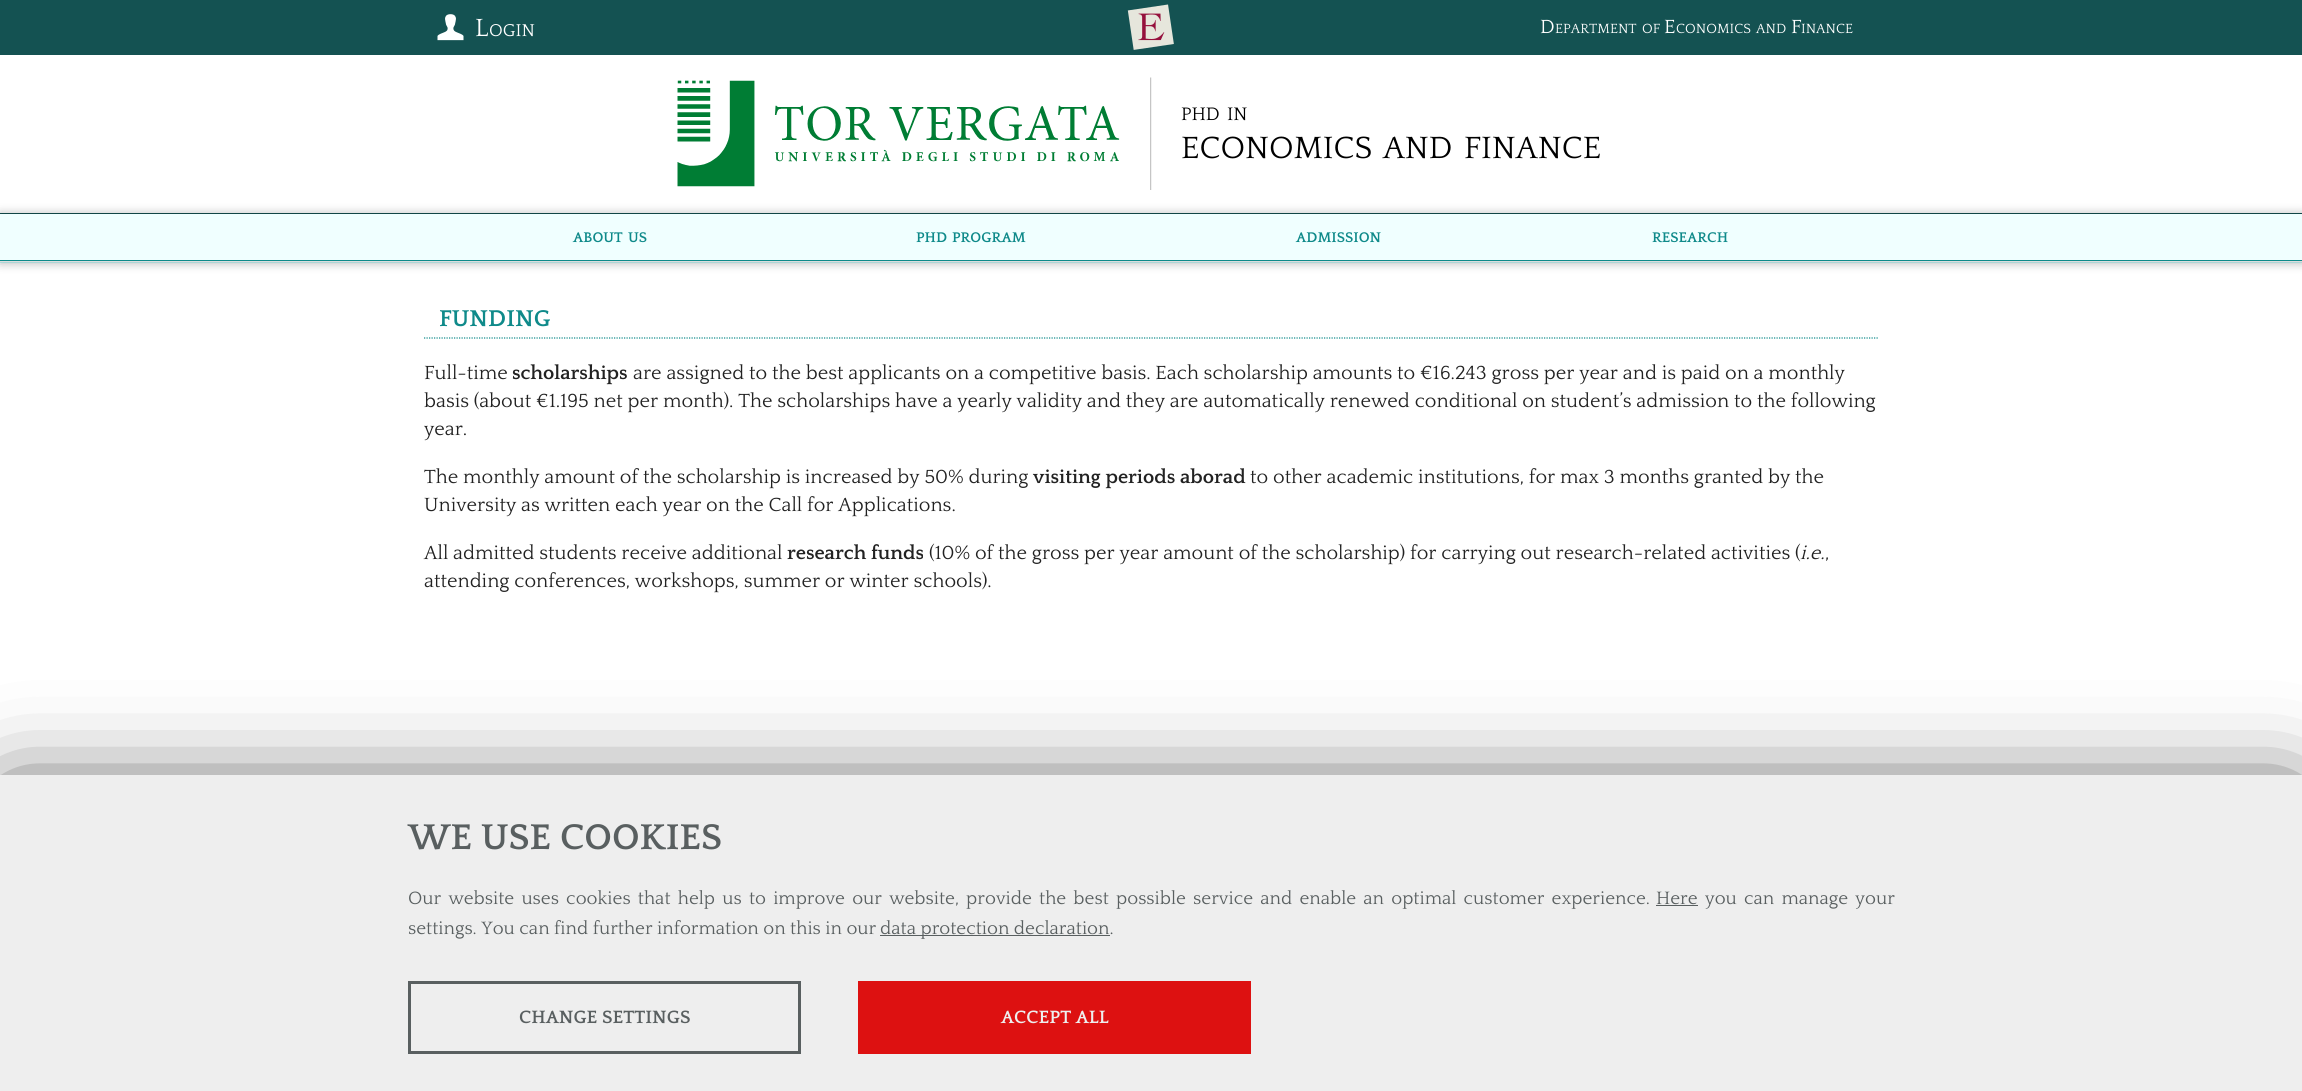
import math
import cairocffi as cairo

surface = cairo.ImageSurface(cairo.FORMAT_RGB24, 2302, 1091)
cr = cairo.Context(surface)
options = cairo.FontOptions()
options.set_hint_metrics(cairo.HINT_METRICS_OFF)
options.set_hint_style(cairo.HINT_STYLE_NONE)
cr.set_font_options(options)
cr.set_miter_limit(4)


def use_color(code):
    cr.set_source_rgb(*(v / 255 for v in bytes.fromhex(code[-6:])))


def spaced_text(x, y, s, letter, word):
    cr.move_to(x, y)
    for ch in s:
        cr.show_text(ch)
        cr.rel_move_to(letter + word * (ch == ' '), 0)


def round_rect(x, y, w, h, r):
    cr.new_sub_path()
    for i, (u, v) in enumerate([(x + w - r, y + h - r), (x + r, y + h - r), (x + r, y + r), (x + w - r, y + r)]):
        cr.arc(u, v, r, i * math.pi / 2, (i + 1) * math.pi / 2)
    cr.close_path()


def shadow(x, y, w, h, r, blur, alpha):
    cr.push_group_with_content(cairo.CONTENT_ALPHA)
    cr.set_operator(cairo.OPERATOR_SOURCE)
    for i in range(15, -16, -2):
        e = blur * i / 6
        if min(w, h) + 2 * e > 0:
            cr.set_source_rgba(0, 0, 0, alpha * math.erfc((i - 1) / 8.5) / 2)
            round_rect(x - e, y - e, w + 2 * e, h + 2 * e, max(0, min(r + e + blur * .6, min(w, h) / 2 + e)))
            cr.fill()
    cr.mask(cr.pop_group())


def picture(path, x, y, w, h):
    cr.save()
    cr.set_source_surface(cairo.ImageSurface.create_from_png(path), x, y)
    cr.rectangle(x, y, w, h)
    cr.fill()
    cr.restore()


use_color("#ffffff")
cr.paint()
use_color("#145252")
cr.rectangle(0, 213, 2302, 1)
cr.fill()
cr.rectangle(0, 0, 2302, 55)
cr.fill()
picture("img1.png", 437, 14, 27, 27)
cr.select_font_face("Quattrocento")
cr.set_font_size(26)
use_color("#ffffff")
cr.move_to(475, 36)
cr.show_text("L")
cr.set_font_size(18)
cr.move_to(489, 36)
cr.show_text("OGIN")
picture("img2.png", 1127, 4, 47, 46)
cr.set_font_size(20)
cr.move_to(1540, 33)
cr.show_text("D")
cr.set_font_size(14)
cr.move_to(1555, 33)
cr.show_text("EPARTMENT")
cr.move_to(1642, 33)
cr.show_text("OF")
cr.set_font_size(20)
cr.move_to(1664, 33)
cr.show_text("E")
cr.set_font_size(14)
cr.move_to(1676, 33)
cr.show_text("CONOMICS")
cr.move_to(1756, 33)
cr.show_text("AND")
cr.set_font_size(20)
cr.move_to(1791, 33)
cr.show_text("F")
cr.set_font_size(14)
cr.move_to(1801, 33)
cr.show_text("INANCE")
picture("img3.png", 1150, 77, 2, 113)
picture("img4.png", 677, 80, 443, 107)
cr.set_font_size(19)
use_color("#000000")
cr.move_to(1181, 120)
cr.show_text("PHD")
cr.move_to(1227, 120)
cr.show_text("IN")
cr.set_font_size(32.25)
cr.move_to(1181, 158)
cr.show_text("ECONOMICS")
cr.move_to(1383, 158)
cr.show_text("AND")
cr.move_to(1464, 158)
cr.show_text("FINANCE")
use_color("#ccffff")
cr.rectangle(0, 262, 2302, 1)
cr.fill()
use_color("#000000")
shadow(0, 214, 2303, 49, 0, 5, 0.3)
use_color("#dddddd")
cr.rectangle(0, 261, 2302, 1)
cr.fill()
use_color("#f0ffff")
cr.rectangle(0, 214, 2302, 46)
cr.fill()
cr.select_font_face("Quattrocento", cairo.FONT_SLANT_NORMAL, cairo.FONT_WEIGHT_BOLD)
cr.set_font_size(14.75)
use_color("#0f8a8a")
cr.move_to(573, 242)
cr.show_text("ABOUT")
cr.move_to(628, 242)
cr.show_text("US")
cr.move_to(916, 242)
cr.show_text("PHD")
cr.move_to(952, 242)
cr.show_text("PROGRAM")
cr.move_to(1296, 242)
cr.show_text("ADMISSION")
cr.move_to(1652, 242)
cr.show_text("RESEARCH")
cr.rectangle(0, 260, 2302, 1)
cr.fill()
cr.new_path()
cr.move_to(424, 338)
cr.line_to(1879, 338)
cr.set_line_width(1.2)
cr.set_dash([1.25, 1.25])
cr.stroke()
cr.set_font_size(24)
cr.move_to(439, 326)
cr.show_text("FUNDING")
cr.select_font_face("Quattrocento")
cr.set_font_size(20)
use_color("#222222")
cr.move_to(424, 379)
cr.show_text("Full-time")
cr.select_font_face("Quattrocento", cairo.FONT_SLANT_NORMAL, cairo.FONT_WEIGHT_BOLD)
cr.move_to(512, 379)
cr.show_text("scholarships")
cr.select_font_face("Quattrocento")
cr.move_to(633, 379)
cr.show_text("are assigned to the best applicants on a competitive basis. Each scholarship amounts to €16.243 gross per year and is paid on a monthly")
cr.move_to(424, 407)
cr.show_text("basis (about €1.195 net per month). The scholarships have a yearly validity and they are automatically renewed conditional on student’s admission to the following")
cr.move_to(424, 435)
cr.show_text("year.")
cr.move_to(424, 483)
cr.show_text("The monthly amount of the scholarship is increased by 50% during")
cr.select_font_face("Quattrocento", cairo.FONT_SLANT_NORMAL, cairo.FONT_WEIGHT_BOLD)
cr.move_to(1033, 483)
cr.show_text("visiting periods aborad")
cr.select_font_face("Quattrocento")
cr.move_to(1250, 483)
cr.show_text("to other academic institutions, for max 3 months granted by the")
cr.move_to(424, 511)
cr.show_text("University as written each year on the Call for Applications.")
cr.move_to(424, 559)
cr.show_text("All admitted students receive additional")
cr.select_font_face("Quattrocento", cairo.FONT_SLANT_NORMAL, cairo.FONT_WEIGHT_BOLD)
cr.move_to(787, 559)
cr.show_text("research funds")
cr.select_font_face("Quattrocento")
cr.move_to(929, 559)
cr.show_text("(10% of the gross per year amount of the scholarship) for carrying out research-related activities (")
cr.select_font_face("Quattrocento", cairo.FONT_SLANT_ITALIC)
cr.move_to(1800, 559)
cr.show_text("i.e.")
cr.select_font_face("Quattrocento")
cr.move_to(1825, 559)
cr.show_text(",")
cr.move_to(424, 587)
cr.show_text("attending conferences, workshops, summer or winter schools).")
use_color("#000000")
shadow(10, 805, 2283, 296, 0, 50, 1)
use_color("#eeeeee")
cr.rectangle(0, 775, 2302, 316)
cr.fill()
cr.select_font_face("Quattrocento", cairo.FONT_SLANT_NORMAL, cairo.FONT_WEIGHT_BOLD)
cr.set_font_size(37.5)
use_color("#595f60")
cr.move_to(408, 849)
cr.show_text("WE USE COOKIES")
cr.select_font_face("Quattrocento")
cr.set_font_size(18.75)
spaced_text(408, 904, "Our website uses cookies that help us to improve our website, provide the best possible service and enable an optimal customer experience.", 0, 2.7)
cr.move_to(1656, 904)
cr.show_text("Here")
cr.rectangle(1656, 905, 42, 1)
cr.fill()
spaced_text(1705, 904, "you can manage your", 0, 2.7)
cr.move_to(408, 934)
cr.show_text("settings. You can find further information on this in our")
cr.rectangle(880, 935, 230, 1)
cr.fill()
cr.move_to(880, 934)
cr.show_text("data protection declaration.")
cr.rectangle(409.5, 982.5, 390, 70)
cr.set_line_width(3)
cr.set_dash([])
cr.stroke()
cr.select_font_face("Quattrocento", cairo.FONT_SLANT_NORMAL, cairo.FONT_WEIGHT_BOLD)
cr.move_to(519, 1023)
cr.show_text("CHANGE SETTINGS")
use_color("#dd1111")
cr.rectangle(858, 981, 393, 73)
cr.fill()
use_color("#eeeeee")
cr.move_to(1001, 1023)
cr.show_text("ACCEPT ALL")
surface.write_to_png("result.png")
